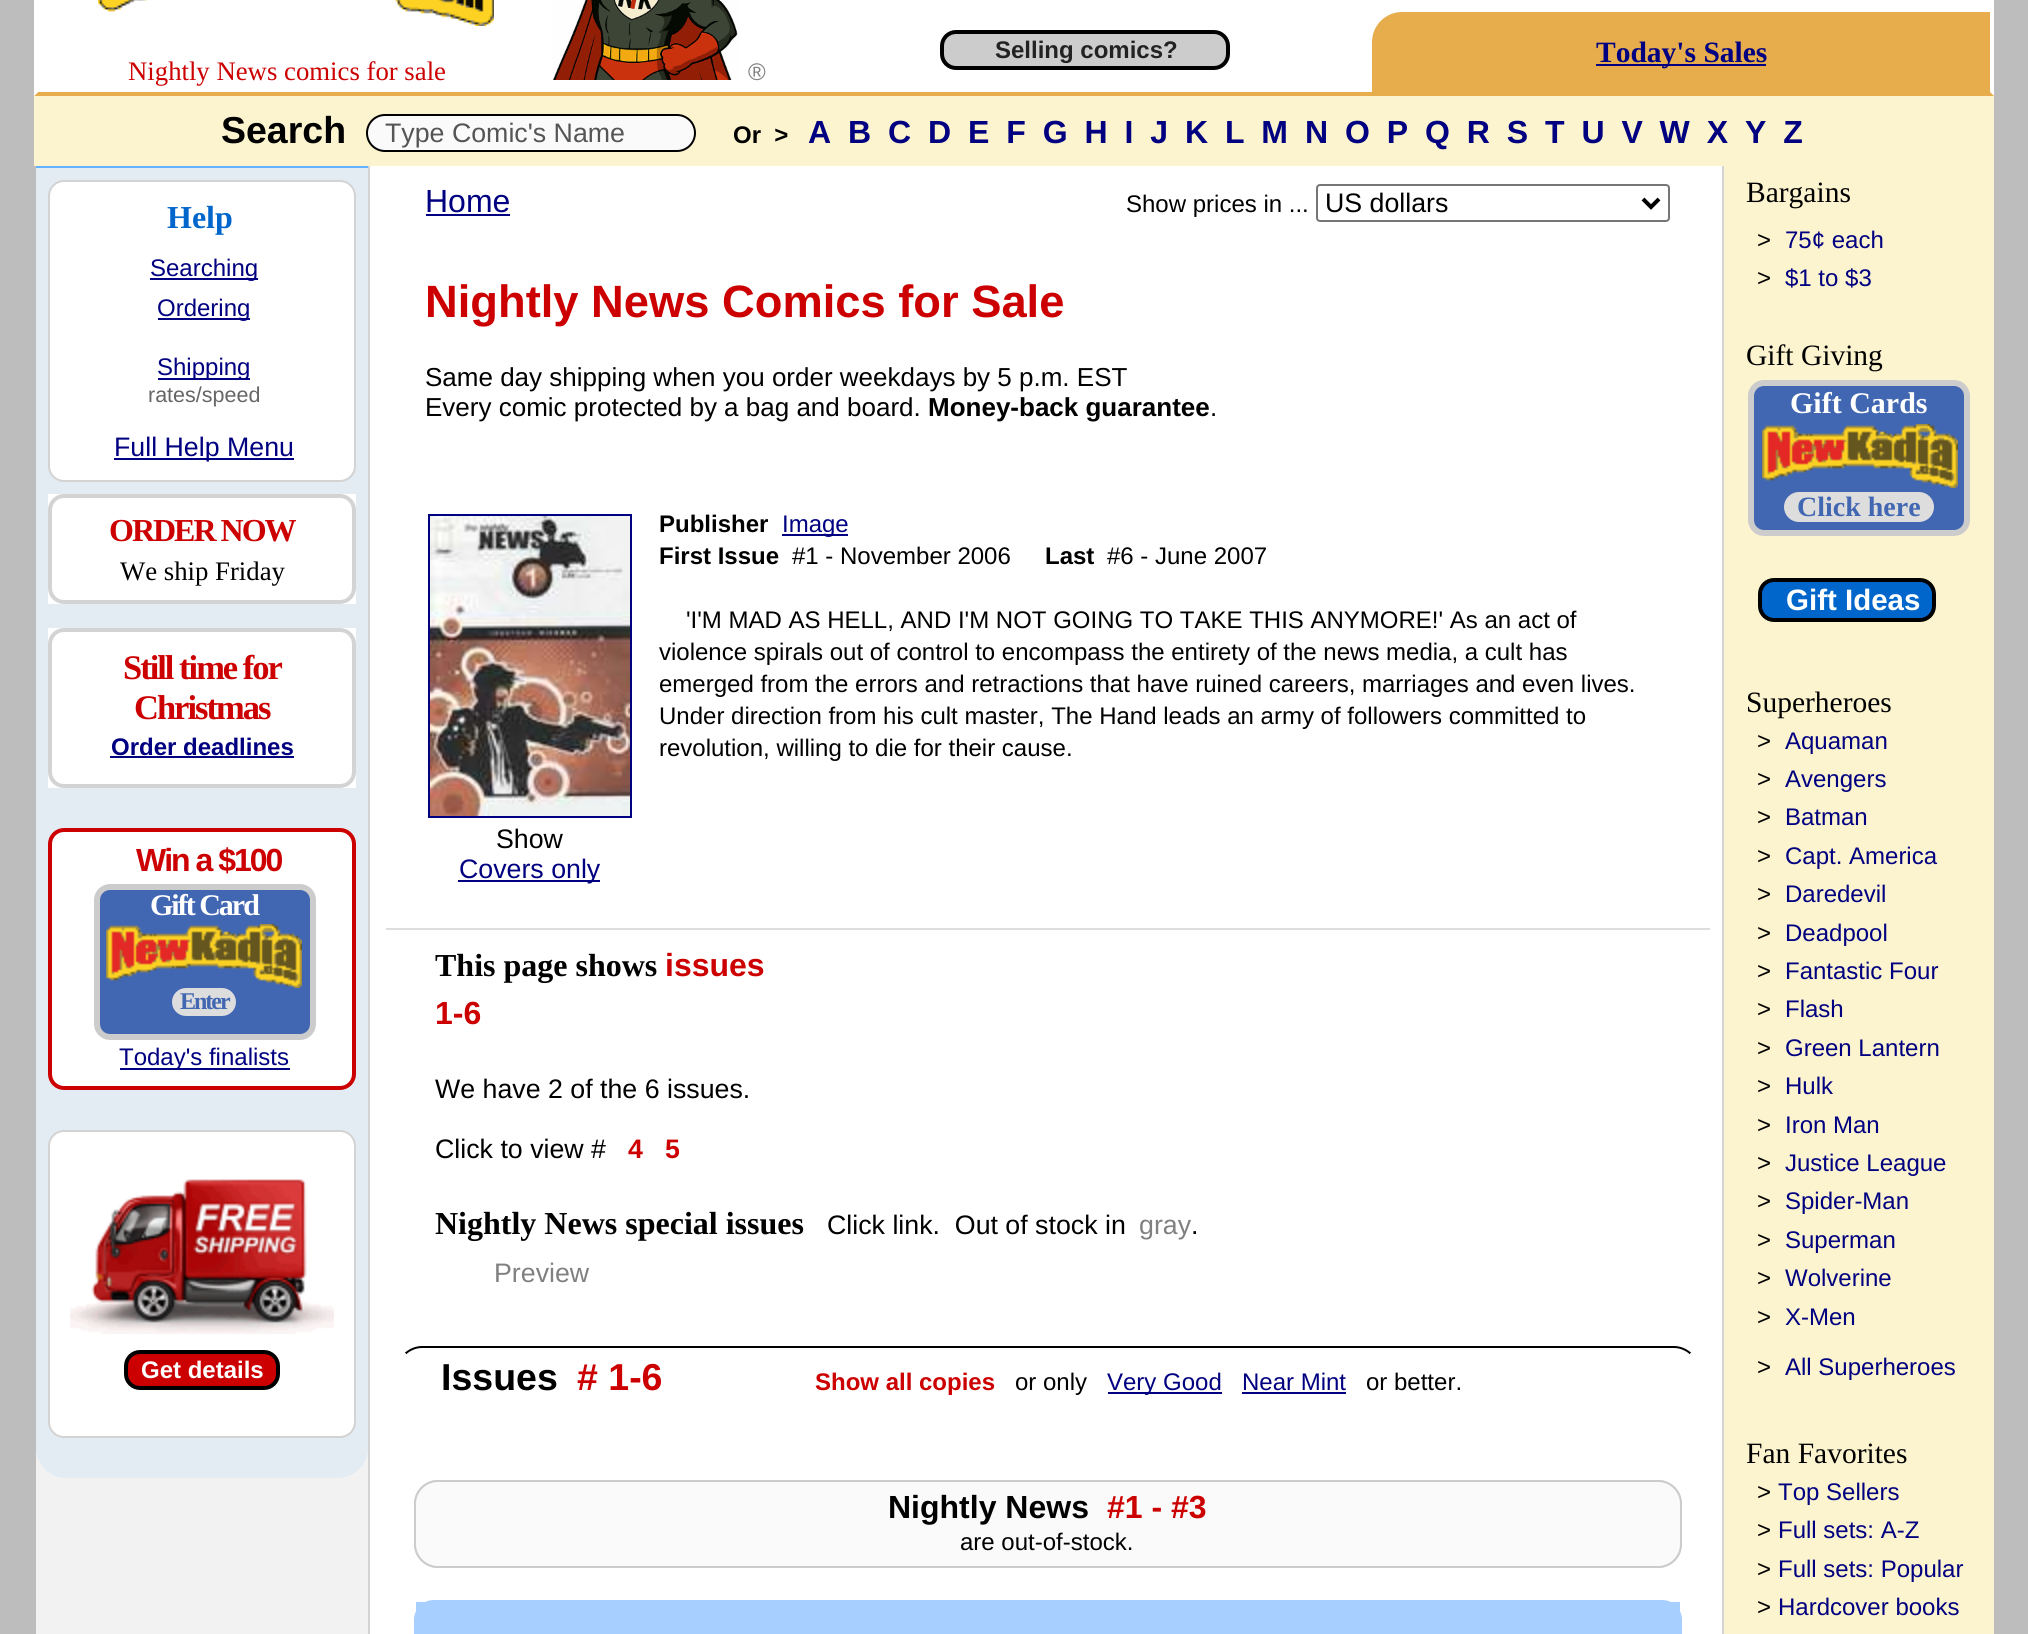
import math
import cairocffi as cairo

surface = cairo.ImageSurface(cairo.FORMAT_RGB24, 2028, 1634)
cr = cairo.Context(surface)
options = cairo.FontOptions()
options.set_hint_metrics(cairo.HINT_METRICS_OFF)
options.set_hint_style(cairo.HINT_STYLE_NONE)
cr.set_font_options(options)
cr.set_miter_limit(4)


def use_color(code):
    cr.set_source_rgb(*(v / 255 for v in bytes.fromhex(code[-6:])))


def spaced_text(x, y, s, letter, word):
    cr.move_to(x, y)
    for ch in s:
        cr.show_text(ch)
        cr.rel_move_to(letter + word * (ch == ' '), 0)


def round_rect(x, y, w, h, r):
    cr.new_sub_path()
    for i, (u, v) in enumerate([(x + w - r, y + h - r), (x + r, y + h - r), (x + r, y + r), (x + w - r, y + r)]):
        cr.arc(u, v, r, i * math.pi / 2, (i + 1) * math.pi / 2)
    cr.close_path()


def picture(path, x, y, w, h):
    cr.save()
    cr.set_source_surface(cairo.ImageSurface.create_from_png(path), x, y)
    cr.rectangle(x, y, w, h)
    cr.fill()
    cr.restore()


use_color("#bdbdbd")
cr.paint()
use_color("#ffffff")
cr.rectangle(34, 0, 1960, 96)
cr.fill()
use_color("#e7ad4c")
cr.new_path()
cr.move_to(1994, 96)
cr.line_to(1990, 92)
cr.line_to(38, 92)
cr.line_to(34, 96)
cr.close_path()
cr.fill()
use_color("#ffffff")
cr.new_path()
cr.move_to(34, 96)
cr.line_to(38, 92)
cr.line_to(38, -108)
cr.curve_to(38, -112, 40, -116, 43, -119)
cr.line_to(40, -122)
cr.curve_to(36, -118, 34, -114, 34, -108)
cr.close_path()
cr.fill()
use_color("#cccccc")
round_rect(942, 32, 286, 36, 14)
cr.fill_preserve()
use_color("#000000")
cr.set_line_width(4)
cr.stroke()
cr.select_font_face("Liberation Sans", cairo.FONT_SLANT_NORMAL, cairo.FONT_WEIGHT_BOLD)
cr.set_font_size(24)
use_color("#222222")
cr.move_to(995, 58)
cr.show_text("Selling comics?")
picture("img1.png", 98, 0, 396, 26)
cr.select_font_face("Liberation Serif")
cr.set_font_size(26.75)
use_color("#cc0000")
cr.move_to(128, 80)
cr.show_text("Nightly News comics for sale")
picture("img2.png", 552, 0, 186, 80)
cr.select_font_face("Liberation Sans")
cr.set_font_size(24)
use_color("#808080")
cr.move_to(748, 80)
cr.show_text("®")
use_color("#e7ad4c")
cr.new_path()
cr.move_to(1402, 12)
cr.line_to(1990, 12)
cr.line_to(1990, 92)
cr.line_to(1372, 92)
cr.line_to(1372, 42)
cr.curve_to(1372, 25.5, 1385.5, 12, 1402, 12)
cr.close_path()
cr.fill()
use_color("#000080")
cr.rectangle(1596, 64, 170, 2)
cr.fill()
cr.select_font_face("Liberation Serif", cairo.FONT_SLANT_NORMAL, cairo.FONT_WEIGHT_BOLD)
cr.set_font_size(29.5)
cr.move_to(1596, 62)
cr.show_text("Today's Sales")
use_color("#ffffff")
cr.rectangle(370, 166, 1352, 1468)
cr.fill()
use_color("#fcf4ce")
cr.rectangle(34, 96, 1960, 70)
cr.fill()
cr.select_font_face("Liberation Sans", cairo.FONT_SLANT_NORMAL, cairo.FONT_WEIGHT_BOLD)
cr.set_font_size(37.5)
use_color("#000000")
cr.move_to(221, 143)
cr.show_text("Search")
use_color("#fafafa")
round_rect(367, 115, 328, 36, 18)
cr.fill_preserve()
use_color("#000000")
cr.set_line_width(2)
cr.stroke()
cr.select_font_face("Liberation Sans")
cr.set_font_size(26.75)
use_color("#555555")
cr.move_to(385, 142)
cr.show_text("Type Comic's Name")
cr.select_font_face("Liberation Sans", cairo.FONT_SLANT_NORMAL, cairo.FONT_WEIGHT_BOLD)
cr.set_font_size(24)
use_color("#000000")
cr.move_to(733, 143)
cr.show_text("Or  >")
cr.set_font_size(32)
use_color("#000080")
spaced_text(808, 143, "A B C D E F G H I J K L M N O P Q R S T U V W X Y Z", 4, 0)
use_color("#f2f2f2")
cr.rectangle(36, 1448, 332, 186)
cr.fill()
use_color("#62b2ff")
cr.rectangle(34, 166, 336, 2)
cr.fill()
use_color("#d3d3d3")
cr.rectangle(368, 166, 2, 1468)
cr.fill()
use_color("#bdbdbd")
cr.rectangle(34, 166, 2, 2)
cr.fill()
use_color("#e3ebf3")
cr.new_path()
cr.move_to(36, 168)
cr.line_to(368, 168)
cr.line_to(368, 1448)
cr.curve_to(368, 1464.5, 354.5, 1478, 338, 1478)
cr.line_to(66, 1478)
cr.curve_to(49.5, 1478, 36, 1464.5, 36, 1448)
cr.close_path()
cr.fill()
use_color("#ffffff")
round_rect(49, 181, 306, 300, 15)
cr.fill_preserve()
use_color("#d3d3d3")
cr.stroke()
cr.select_font_face("Liberation Serif", cairo.FONT_SLANT_NORMAL, cairo.FONT_WEIGHT_BOLD)
use_color("#0066cc")
cr.move_to(167, 228)
cr.show_text("Help")
use_color("#000080")
cr.rectangle(150, 278, 108, 2)
cr.fill()
cr.select_font_face("Liberation Sans")
cr.set_font_size(24)
cr.move_to(150, 276)
cr.show_text("Searching")
cr.rectangle(158, 318, 92, 2)
cr.fill()
cr.move_to(157, 316)
cr.show_text("Ordering")
cr.rectangle(158, 378, 92, 2)
cr.fill()
cr.move_to(157, 375)
cr.show_text("Shipping")
cr.set_font_size(21.5)
use_color("#666666")
cr.move_to(148, 402)
cr.show_text("rates/speed")
use_color("#000080")
cr.rectangle(114, 458, 180, 2)
cr.fill()
cr.set_font_size(26.75)
cr.move_to(114, 456)
cr.show_text("Full Help Menu")
use_color("#ffffff")
cr.rectangle(48, 494, 308, 110)
cr.fill()
round_rect(50, 496, 304, 106, 14)
use_color("#d3d3d3")
cr.set_line_width(4)
cr.stroke()
cr.select_font_face("Liberation Serif", cairo.FONT_SLANT_NORMAL, cairo.FONT_WEIGHT_BOLD)
cr.set_font_size(32)
use_color("#cc0000")
spaced_text(109, 541, "ORDER NOW", -2, 0)
cr.select_font_face("Liberation Serif")
cr.set_font_size(26.75)
use_color("#000000")
cr.move_to(120, 580)
cr.show_text("We ship Friday")
use_color("#ffffff")
cr.rectangle(48, 628, 308, 160)
cr.fill()
round_rect(50, 630, 304, 156, 14)
use_color("#d3d3d3")
cr.stroke()
cr.select_font_face("Liberation Serif", cairo.FONT_SLANT_NORMAL, cairo.FONT_WEIGHT_BOLD)
cr.set_font_size(34.5)
use_color("#cc0000")
spaced_text(123, 679, "Still time for", -2, 0)
spaced_text(134, 719, "Christmas", -2, 0)
cr.select_font_face("Liberation Sans", cairo.FONT_SLANT_NORMAL, cairo.FONT_WEIGHT_BOLD)
cr.set_font_size(24)
use_color("#000080")
cr.move_to(111, 755)
cr.show_text("Order deadlines")
cr.rectangle(110, 756, 184, 2)
cr.fill()
use_color("#ffffff")
round_rect(50, 830, 304, 258, 14)
cr.fill_preserve()
use_color("#cc0000")
cr.stroke()
cr.set_font_size(32)
spaced_text(136, 871, "Win a $100", -2, 0)
use_color("#4267b2")
round_rect(97, 887, 216, 150, 13)
cr.fill_preserve()
use_color("#cccccc")
cr.set_line_width(6)
cr.stroke()
cr.select_font_face("Liberation Serif", cairo.FONT_SLANT_NORMAL, cairo.FONT_WEIGHT_BOLD)
cr.set_font_size(30)
use_color("#ffffff")
spaced_text(150, 915, "Gift Card", -2, 0)
picture("img3.png", 106, 924, 196, 64)
use_color("#dddddd")
round_rect(172, 988, 64, 28, 14)
cr.fill()
cr.set_font_size(24)
use_color("#4267b2")
spaced_text(180, 1009, "Enter", -2, 0)
use_color("#000080")
cr.rectangle(120, 1068, 170, 2)
cr.fill()
cr.select_font_face("Liberation Sans")
cr.move_to(119, 1065)
cr.show_text("Today's finalists")
use_color("#ffffff")
round_rect(49, 1131, 306, 306, 15)
cr.fill_preserve()
use_color("#d3d3d3")
cr.set_line_width(2)
cr.stroke()
picture("img4.png", 70, 1179, 264, 155)
use_color("#cc0000")
round_rect(126, 1352, 152, 36, 14)
cr.fill_preserve()
use_color("#000000")
cr.set_line_width(4)
cr.stroke()
cr.select_font_face("Liberation Sans", cairo.FONT_SLANT_NORMAL, cairo.FONT_WEIGHT_BOLD)
use_color("#ffffff")
cr.move_to(141, 1378)
cr.show_text("Get details")
use_color("#d3d3d3")
cr.rectangle(1722, 166, 2, 1468)
cr.fill()
cr.select_font_face("Liberation Sans")
cr.set_font_size(32)
use_color("#000080")
cr.move_to(425, 212)
cr.show_text("Home")
cr.rectangle(426, 214, 84, 2)
cr.fill()
cr.set_font_size(24)
use_color("#000000")
cr.move_to(1126, 212)
cr.show_text("Show prices in ...")
round_rect(1317, 185, 352, 36, 3)
use_color("#767676")
cr.set_line_width(2)
cr.stroke()
cr.new_path()
cr.move_to(1643, 199)
cr.line_to(1651, 207)
cr.line_to(1659, 199)
use_color("#000000")
cr.set_line_width(4)
cr.stroke()
cr.set_font_size(26.75)
cr.move_to(1325, 212)
cr.show_text("US dollars")
cr.select_font_face("Liberation Sans", cairo.FONT_SLANT_NORMAL, cairo.FONT_WEIGHT_BOLD)
cr.set_font_size(45.3)
use_color("#cc0000")
cr.move_to(425, 317)
cr.show_text("Nightly News Comics for Sale")
cr.select_font_face("Liberation Sans")
cr.set_font_size(26)
use_color("#000000")
cr.move_to(425, 386)
cr.show_text("Same day shipping when you order weekdays by 5 p.m. EST")
cr.move_to(425, 416)
cr.show_text("Every comic protected by a bag and board.")
cr.select_font_face("Liberation Sans", cairo.FONT_SLANT_NORMAL, cairo.FONT_WEIGHT_BOLD)
cr.move_to(928, 416)
cr.show_text("Money-back guarantee")
cr.select_font_face("Liberation Sans")
cr.move_to(1210, 416)
cr.show_text(".")
cr.select_font_face("Liberation Sans", cairo.FONT_SLANT_NORMAL, cairo.FONT_WEIGHT_BOLD)
cr.set_font_size(24)
cr.move_to(659, 532)
cr.show_text("Publisher")
use_color("#000080")
cr.rectangle(782, 534, 66, 2)
cr.fill()
cr.select_font_face("Liberation Sans")
cr.move_to(782, 532)
cr.show_text("Image")
cr.select_font_face("Liberation Sans", cairo.FONT_SLANT_NORMAL, cairo.FONT_WEIGHT_BOLD)
use_color("#000000")
cr.move_to(659, 564)
cr.show_text("First Issue")
cr.select_font_face("Liberation Sans")
cr.move_to(792, 564)
cr.show_text("#1 - November 2006")
cr.select_font_face("Liberation Sans", cairo.FONT_SLANT_NORMAL, cairo.FONT_WEIGHT_BOLD)
cr.move_to(1045, 564)
cr.show_text("Last")
cr.select_font_face("Liberation Sans")
cr.move_to(1107, 564)
cr.show_text("#6 - June 2007")
cr.move_to(686, 628)
cr.show_text("'I'M MAD AS HELL, AND I'M NOT GOING TO TAKE THIS ANYMORE!' As an act of")
cr.move_to(659, 660)
cr.show_text("violence spirals out of control to encompass the entirety of the news media, a cult has")
cr.move_to(659, 692)
cr.show_text("emerged from the errors and retractions that have ruined careers, marriages and even lives.")
cr.move_to(659, 724)
cr.show_text("Under direction from his cult master, The Hand leads an army of followers committed to")
cr.move_to(659, 756)
cr.show_text("revolution, willing to die for their cause.")
cr.rectangle(429, 515, 202, 302)
use_color("#000080")
cr.set_line_width(2)
cr.stroke()
picture("img5.png", 430, 516, 200, 300)
cr.set_font_size(26.75)
use_color("#000000")
cr.move_to(496, 848)
cr.show_text("Show")
use_color("#000080")
cr.rectangle(458, 880, 142, 2)
cr.fill()
cr.move_to(459, 878)
cr.show_text("Covers only")
use_color("#dddddd")
cr.rectangle(384, 928, 1328, 2)
cr.fill()
use_color("#ffffff")
cr.rectangle(1710, 928, 2, 2)
cr.fill()
cr.rectangle(384, 928, 2, 2)
cr.fill()
cr.select_font_face("Liberation Serif", cairo.FONT_SLANT_NORMAL, cairo.FONT_WEIGHT_BOLD)
cr.set_font_size(32)
use_color("#000000")
cr.move_to(435, 976)
cr.show_text("This page shows")
cr.select_font_face("Liberation Sans", cairo.FONT_SLANT_NORMAL, cairo.FONT_WEIGHT_BOLD)
use_color("#cc0000")
cr.move_to(665, 976)
cr.show_text("issues")
cr.move_to(435, 1024)
cr.show_text("1-6")
cr.select_font_face("Liberation Sans")
cr.set_font_size(26.75)
use_color("#000000")
cr.move_to(435, 1098)
cr.show_text("We have 2 of the 6 issues.")
cr.move_to(435, 1158)
cr.show_text("Click to view #")
cr.select_font_face("Liberation Sans", cairo.FONT_SLANT_NORMAL, cairo.FONT_WEIGHT_BOLD)
use_color("#cc0000")
cr.move_to(628, 1158)
cr.show_text("4")
cr.move_to(665, 1158)
cr.show_text("5")
cr.select_font_face("Liberation Serif", cairo.FONT_SLANT_NORMAL, cairo.FONT_WEIGHT_BOLD)
cr.set_font_size(32)
use_color("#000000")
cr.move_to(435, 1234)
cr.show_text("Nightly News special issues")
cr.select_font_face("Liberation Sans")
cr.set_font_size(26.75)
cr.move_to(827, 1234)
cr.show_text("Click link.  Out of stock in")
use_color("#808080")
cr.move_to(1139, 1234)
cr.show_text("gray")
use_color("#000000")
cr.move_to(1191, 1234)
cr.show_text(".")
use_color("#808080")
cr.move_to(494, 1282)
cr.show_text("Preview")
cr.new_path()
cr.move_to(405.5, 1353.5)
cr.curve_to(410, 1349.5, 416, 1347, 422, 1347)
cr.line_to(1674, 1347)
cr.curve_to(1680, 1347, 1686, 1349.5, 1690.5, 1353.5)
use_color("#000000")
cr.stroke()
cr.new_path()
cr.move_to(1690.5, 1353.5)
cr.curve_to(1694.5, 1358, 1697, 1364, 1697, 1370)
cr.line_to(1697, 1420)
cr.curve_to(1697, 1426, 1694.5, 1432, 1690.5, 1436.5)
cr.curve_to(1686, 1440.5, 1680, 1443, 1674, 1443)
cr.line_to(422, 1443)
cr.curve_to(416, 1443, 410, 1440.5, 405.5, 1436.5)
cr.curve_to(401.5, 1432, 399, 1426, 399, 1420)
cr.line_to(399, 1370)
cr.curve_to(399, 1364, 401.5, 1358, 405.5, 1353.5)
use_color("#ffffff")
cr.stroke()
cr.select_font_face("Liberation Sans", cairo.FONT_SLANT_NORMAL, cairo.FONT_WEIGHT_BOLD)
cr.set_font_size(37.5)
use_color("#000000")
cr.move_to(441, 1390)
cr.show_text("Issues")
use_color("#cc0000")
cr.move_to(577, 1390)
cr.show_text("# 1-6")
cr.set_font_size(24)
cr.move_to(815, 1390)
cr.show_text("Show all copies")
cr.select_font_face("Liberation Sans")
use_color("#000000")
cr.move_to(1015, 1390)
cr.show_text("or only")
use_color("#000080")
cr.rectangle(1108, 1392, 114, 2)
cr.fill()
cr.move_to(1107, 1390)
cr.show_text("Very Good")
cr.move_to(1242, 1390)
cr.show_text("Near Mint")
cr.rectangle(1242, 1392, 104, 2)
cr.fill()
use_color("#000000")
cr.move_to(1366, 1390)
cr.show_text("or better.")
round_rect(415, 1481, 1266, 86, 23)
use_color("#cccccc")
cr.stroke()
use_color("#fafafa")
round_rect(415, 1481, 1266, 86, 23)
cr.fill_preserve()
use_color("#cccccc")
cr.stroke()
cr.select_font_face("Liberation Sans", cairo.FONT_SLANT_NORMAL, cairo.FONT_WEIGHT_BOLD)
cr.set_font_size(32)
use_color("#000000")
cr.move_to(888, 1518)
cr.show_text("Nightly News")
use_color("#cc0000")
cr.move_to(1107, 1518)
cr.show_text("#1 - #3")
cr.select_font_face("Liberation Sans")
cr.set_font_size(24)
use_color("#000000")
cr.move_to(960, 1550)
cr.show_text("are out-of-stock.")
use_color("#a7cfff")
cr.new_path()
cr.move_to(434, 1600)
cr.curve_to(428, 1600, 424, 1602, 420, 1606)
cr.line_to(421, 1607)
cr.curve_to(424, 1604, 429, 1602, 434, 1602)
cr.line_to(1662, 1602)
cr.curve_to(1667, 1602, 1672, 1604, 1675, 1607)
cr.line_to(1676, 1606)
cr.curve_to(1672, 1602, 1668, 1600, 1662, 1600)
cr.close_path()
cr.fill()
cr.new_path()
cr.move_to(1682, 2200)
cr.line_to(1682, 1620)
cr.curve_to(1682, 1614, 1680, 1610, 1676, 1606)
cr.line_to(1675, 1607)
cr.curve_to(1678, 1610, 1680, 1615, 1680, 1620)
cr.line_to(1680, 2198)
cr.close_path()
cr.fill()
cr.new_path()
cr.move_to(414, 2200)
cr.line_to(416, 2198)
cr.line_to(416, 1620)
cr.curve_to(416, 1615, 418, 1610, 421, 1607)
cr.line_to(420, 1606)
cr.curve_to(416, 1610, 414, 1614, 414, 1620)
cr.close_path()
cr.fill()
cr.rectangle(416, 1602, 1264, 32)
cr.fill()
use_color("#fcf3cf")
cr.rectangle(1724, 166, 270, 1468)
cr.fill()
cr.select_font_face("Liberation Serif")
cr.set_font_size(29.5)
use_color("#000000")
cr.move_to(1746, 202)
cr.show_text("Bargains")
cr.select_font_face("Liberation Sans")
cr.set_font_size(24)
cr.move_to(1757, 248)
cr.show_text(">")
use_color("#000080")
cr.move_to(1785, 248)
cr.show_text("75¢ each")
use_color("#000000")
cr.move_to(1757, 286)
cr.show_text(">")
use_color("#000080")
cr.move_to(1785, 286)
cr.show_text("$1 to $3")
cr.select_font_face("Liberation Serif")
cr.set_font_size(29.5)
use_color("#000000")
cr.move_to(1746, 365)
cr.show_text("Gift Giving")
use_color("#4267b2")
round_rect(1751, 383, 216, 150, 13)
cr.fill_preserve()
use_color("#cccccc")
cr.set_line_width(6)
cr.stroke()
cr.select_font_face("Liberation Serif", cairo.FONT_SLANT_NORMAL, cairo.FONT_WEIGHT_BOLD)
cr.set_font_size(30)
use_color("#ffffff")
cr.move_to(1790, 413)
cr.show_text("Gift Cards")
picture("img3.png", 1762, 424, 196, 64)
use_color("#dddddd")
round_rect(1784, 492, 150, 30, 15)
cr.fill()
cr.set_font_size(28)
use_color("#4267b2")
cr.move_to(1797, 516)
cr.show_text("Click here")
use_color("#0066cc")
round_rect(1760, 580, 174, 40, 14)
cr.fill_preserve()
use_color("#000000")
cr.set_line_width(4)
cr.stroke()
cr.select_font_face("Liberation Sans", cairo.FONT_SLANT_NORMAL, cairo.FONT_WEIGHT_BOLD)
cr.set_font_size(29.5)
use_color("#ffffff")
cr.move_to(1786, 610)
cr.show_text("Gift Ideas")
cr.select_font_face("Liberation Serif")
use_color("#000000")
cr.move_to(1746, 712)
cr.show_text("Superheroes")
cr.select_font_face("Liberation Sans")
cr.set_font_size(24)
cr.move_to(1757, 749)
cr.show_text(">")
use_color("#000080")
cr.move_to(1785, 749)
cr.show_text("Aquaman")
use_color("#000000")
cr.move_to(1757, 787)
cr.show_text(">")
use_color("#000080")
cr.move_to(1785, 787)
cr.show_text("Avengers")
use_color("#000000")
cr.move_to(1757, 825)
cr.show_text(">")
use_color("#000080")
cr.move_to(1785, 825)
cr.show_text("Batman")
use_color("#000000")
cr.move_to(1757, 864)
cr.show_text(">")
use_color("#000080")
cr.move_to(1785, 864)
cr.show_text("Capt. America")
use_color("#000000")
cr.move_to(1757, 902)
cr.show_text(">")
use_color("#000080")
cr.move_to(1785, 902)
cr.show_text("Daredevil")
use_color("#000000")
cr.move_to(1757, 941)
cr.show_text(">")
use_color("#000080")
cr.move_to(1785, 941)
cr.show_text("Deadpool")
use_color("#000000")
cr.move_to(1757, 979)
cr.show_text(">")
use_color("#000080")
cr.move_to(1785, 979)
cr.show_text("Fantastic Four")
use_color("#000000")
cr.move_to(1757, 1017)
cr.show_text(">")
use_color("#000080")
cr.move_to(1785, 1017)
cr.show_text("Flash")
use_color("#000000")
cr.move_to(1757, 1056)
cr.show_text(">")
use_color("#000080")
cr.move_to(1785, 1056)
cr.show_text("Green Lantern")
use_color("#000000")
cr.move_to(1757, 1094)
cr.show_text(">")
use_color("#000080")
cr.move_to(1785, 1094)
cr.show_text("Hulk")
use_color("#000000")
cr.move_to(1757, 1133)
cr.show_text(">")
use_color("#000080")
cr.move_to(1785, 1133)
cr.show_text("Iron Man")
use_color("#000000")
cr.move_to(1757, 1171)
cr.show_text(">")
use_color("#000080")
cr.move_to(1785, 1171)
cr.show_text("Justice League")
use_color("#000000")
cr.move_to(1757, 1209)
cr.show_text(">")
use_color("#000080")
cr.move_to(1785, 1209)
cr.show_text("Spider-Man")
use_color("#000000")
cr.move_to(1757, 1248)
cr.show_text(">")
use_color("#000080")
cr.move_to(1785, 1248)
cr.show_text("Superman")
use_color("#000000")
cr.move_to(1757, 1286)
cr.show_text(">")
use_color("#000080")
cr.move_to(1785, 1286)
cr.show_text("Wolverine")
use_color("#000000")
cr.move_to(1757, 1325)
cr.show_text(">")
use_color("#000080")
cr.move_to(1785, 1325)
cr.show_text("X-Men")
use_color("#000000")
cr.move_to(1757, 1375)
cr.show_text(">")
use_color("#000080")
cr.move_to(1785, 1375)
cr.show_text("All Superheroes")
cr.select_font_face("Liberation Serif")
cr.set_font_size(29.5)
use_color("#000000")
cr.move_to(1746, 1463)
cr.show_text("Fan Favorites")
cr.select_font_face("Liberation Sans")
cr.set_font_size(24)
cr.move_to(1757, 1500)
cr.show_text(">")
use_color("#000080")
cr.move_to(1778, 1500)
cr.show_text("Top Sellers")
use_color("#000000")
cr.move_to(1757, 1538)
cr.show_text(">")
use_color("#000080")
cr.move_to(1778, 1538)
cr.show_text("Full sets: A-Z")
use_color("#000000")
cr.move_to(1757, 1577)
cr.show_text(">")
use_color("#000080")
cr.move_to(1778, 1577)
cr.show_text("Full sets: Popular")
use_color("#000000")
cr.move_to(1757, 1615)
cr.show_text(">")
use_color("#000080")
cr.move_to(1778, 1615)
cr.show_text("Hardcover books")
surface.write_to_png("result.png")
